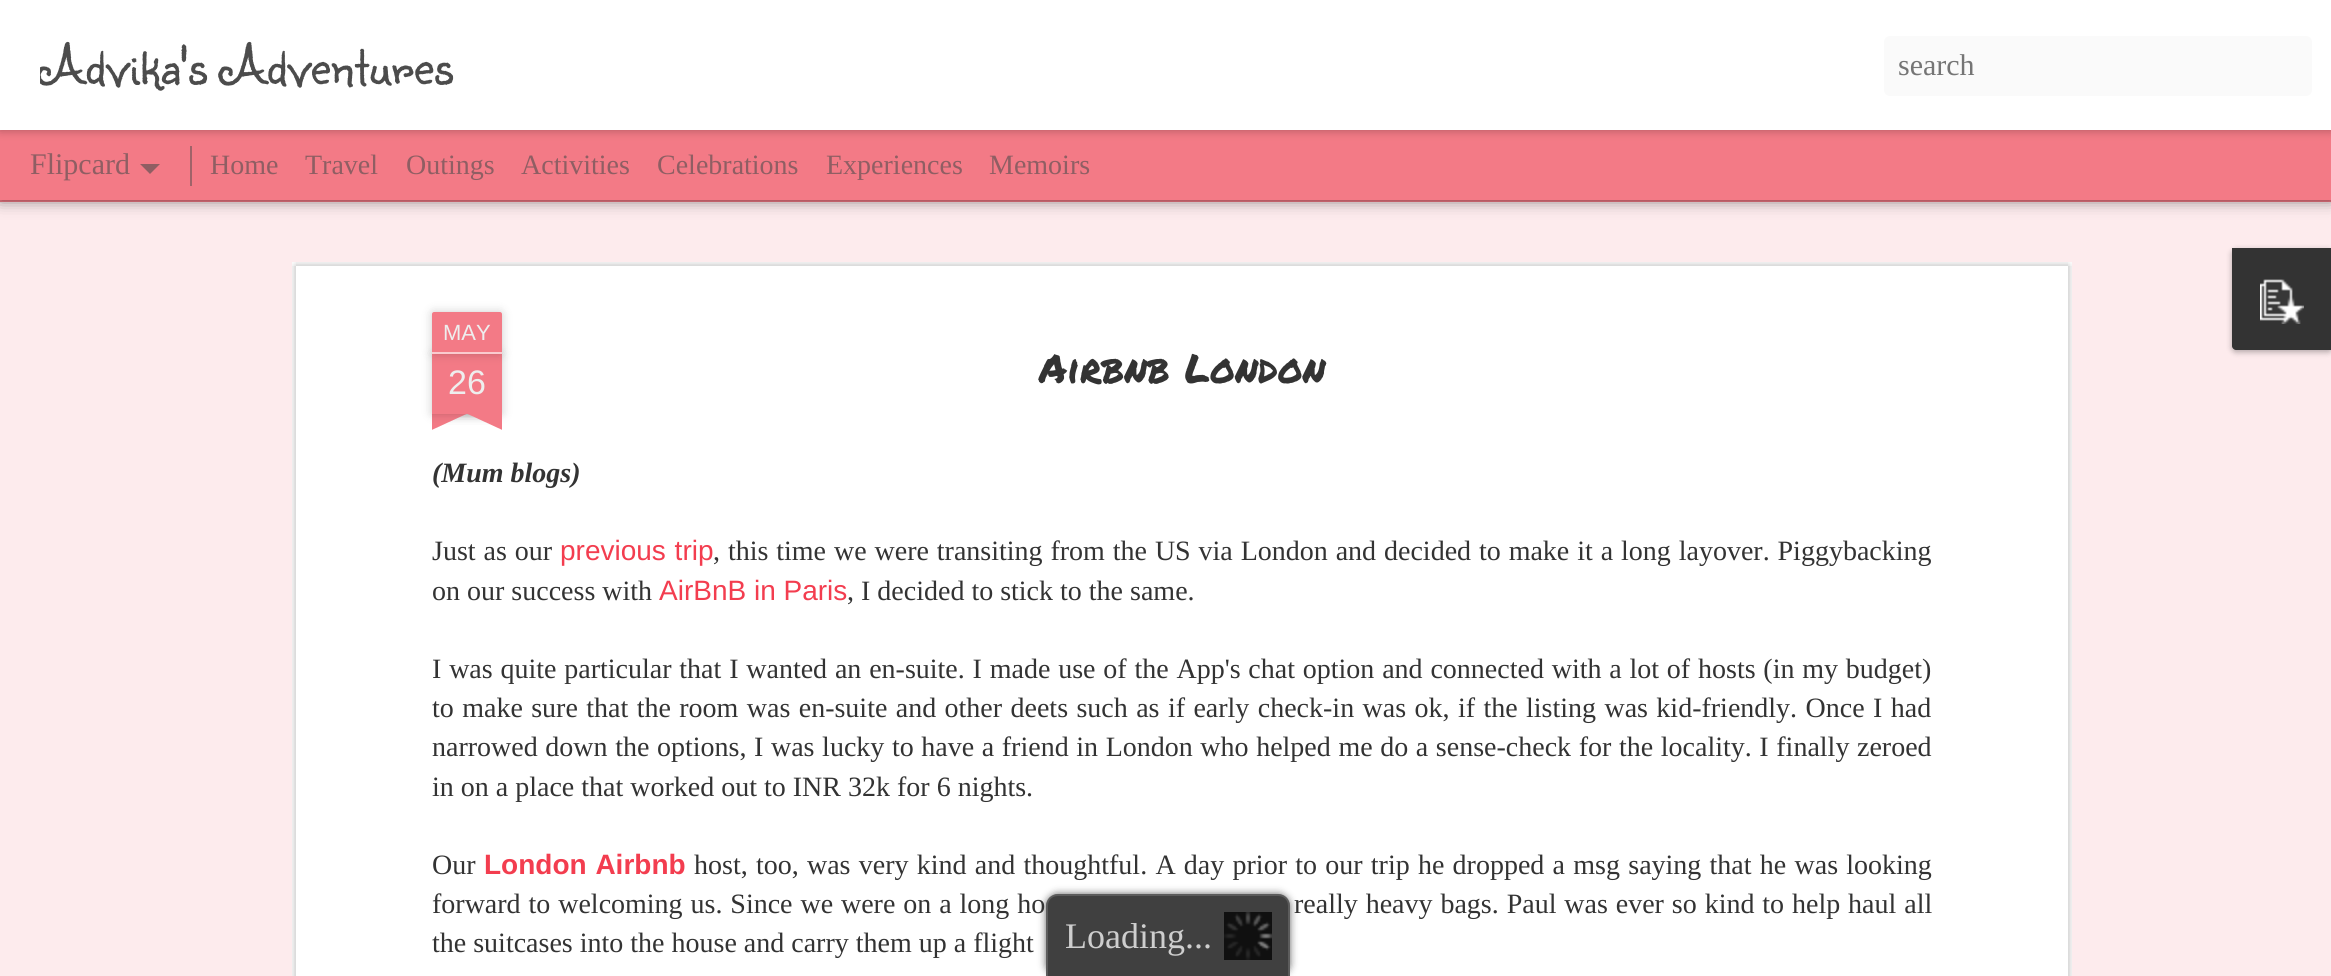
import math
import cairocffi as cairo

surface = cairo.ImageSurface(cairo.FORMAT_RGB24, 2331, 976)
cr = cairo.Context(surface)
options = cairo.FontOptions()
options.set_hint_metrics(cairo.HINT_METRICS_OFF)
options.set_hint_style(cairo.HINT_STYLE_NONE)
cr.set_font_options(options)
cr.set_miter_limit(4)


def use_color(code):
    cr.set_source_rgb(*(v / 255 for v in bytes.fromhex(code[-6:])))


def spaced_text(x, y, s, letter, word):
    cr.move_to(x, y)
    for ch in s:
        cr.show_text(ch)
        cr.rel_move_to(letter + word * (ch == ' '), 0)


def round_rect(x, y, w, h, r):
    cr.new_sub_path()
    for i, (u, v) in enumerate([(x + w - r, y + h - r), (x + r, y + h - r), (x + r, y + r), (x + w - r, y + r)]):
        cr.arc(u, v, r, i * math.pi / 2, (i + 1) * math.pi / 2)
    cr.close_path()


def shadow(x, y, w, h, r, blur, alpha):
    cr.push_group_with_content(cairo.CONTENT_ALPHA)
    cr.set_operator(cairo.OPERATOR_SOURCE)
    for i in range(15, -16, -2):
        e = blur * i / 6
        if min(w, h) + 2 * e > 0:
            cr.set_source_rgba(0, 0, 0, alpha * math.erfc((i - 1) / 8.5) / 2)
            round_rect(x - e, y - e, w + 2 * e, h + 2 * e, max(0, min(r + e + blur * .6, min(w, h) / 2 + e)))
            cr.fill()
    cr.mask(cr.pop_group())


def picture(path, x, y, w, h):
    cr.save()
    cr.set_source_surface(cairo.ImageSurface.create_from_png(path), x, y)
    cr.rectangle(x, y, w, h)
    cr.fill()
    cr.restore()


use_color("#f37a86")
cr.paint()
use_color("#fdebed")
cr.rectangle(0, 202, 2331, 774)
cr.fill()
use_color("#000000")
shadow(0, 130, 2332, 70, 0, 8, 0.5)
use_color("#f37a86")
cr.rectangle(0, 130, 2331, 70)
cr.fill()
use_color("#000000")
shadow(0, 0, 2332, 130, 0, 5, 0.3)
use_color("#ffffff")
cr.rectangle(0, 0, 2331, 130)
cr.fill()
cr.save()
cr.rectangle(40, 0, 1822, 130)
cr.clip()
cr.select_font_face("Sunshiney")
cr.set_font_size(56)
use_color("#4c4c4c")
cr.move_to(40, 84)
cr.show_text("Advika's Adventures")
cr.restore()
use_color("#fafafa")
round_rect(1884, 36, 428, 60, 6)
cr.fill()
cr.select_font_face("Liberation Serif")
cr.set_font_size(30)
use_color("#757575")
cr.move_to(1898, 75)
cr.show_text("search")
use_color("#8f5e63")
cr.move_to(30, 174)
cr.show_text("Flipcard")
cr.new_path()
cr.move_to(140, 164)
cr.line_to(160, 164)
cr.line_to(150, 174)
cr.close_path()
cr.fill()
use_color("#a06369")
cr.rectangle(190, 146, 2, 40)
cr.fill()
cr.set_font_size(28)
use_color("#8f5e63")
cr.move_to(210, 174)
cr.show_text("Home")
cr.move_to(305, 174)
cr.show_text("Travel")
cr.move_to(406, 174)
cr.show_text("Outings")
cr.move_to(521, 174)
cr.show_text("Activities")
cr.move_to(657, 174)
cr.show_text("Celebrations")
cr.move_to(826, 174)
cr.show_text("Experiences")
cr.move_to(989, 174)
cr.show_text("Memoirs")
use_color("#000000")
shadow(2232, 250, 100, 102, 4, 3, 0.3)
use_color("#333333")
cr.new_path()
cr.move_to(2232, 248)
cr.line_to(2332, 248)
cr.line_to(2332, 350)
cr.line_to(2236, 350)
cr.curve_to(2234, 350, 2232, 348, 2232, 346)
cr.close_path()
cr.fill()
picture("img1.png", 2260, 279, 44, 45)
use_color("#ffffff")
cr.rectangle(292, 262, 1780, 714)
cr.fill()
picture("img2.png", 292, 262, 1780, 714)
use_color("#000000")
shadow(432, 354, 70, 60, 0, 5, 0.2)
use_color("#f37a86")
cr.rectangle(432, 354, 70, 60)
cr.fill()
use_color("#000000")
shadow(432, 312, 70, 42, 2, 5, 0.2)
use_color("#f37a86")
cr.new_path()
cr.move_to(434, 312)
cr.line_to(500, 312)
cr.curve_to(501, 312, 502, 313, 502, 314)
cr.line_to(502, 354)
cr.line_to(432, 354)
cr.line_to(432, 314)
cr.curve_to(432, 313, 433, 312, 434, 312)
cr.close_path()
cr.fill()
use_color("#facacf")
cr.rectangle(432, 352, 70, 2)
cr.fill()
cr.select_font_face("Liberation Sans")
cr.set_font_size(22)
use_color("#eeeeee")
cr.move_to(443, 340)
cr.show_text("MAY")
cr.set_font_size(34)
cr.move_to(448, 394)
cr.show_text("26")
cr.save()
cr.rectangle(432, 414, 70, 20)
cr.clip()
use_color("#000000")
shadow(414, 394, 100, 20, 0, 5, 0.2)
cr.restore()
cr.save()
cr.rectangle(432, 414, 70, 20)
cr.clip()
use_color("#f37a86")
cr.new_path()
cr.move_to(414, 416)
cr.line_to(505, 374)
cr.line_to(514, 392)
cr.line_to(423, 434)
cr.close_path()
cr.fill()
cr.restore()
cr.save()
cr.rectangle(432, 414, 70, 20)
cr.clip()
use_color("#000000")
shadow(420, 394, 100, 20, 0, 5, 0.2)
cr.restore()
cr.save()
cr.rectangle(432, 414, 70, 20)
cr.clip()
use_color("#f37a86")
cr.new_path()
cr.move_to(429, 374)
cr.line_to(520, 416)
cr.line_to(511, 434)
cr.line_to(420, 392)
cr.close_path()
cr.fill()
cr.restore()
cr.select_font_face("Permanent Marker")
cr.set_font_size(40)
use_color("#333333")
cr.move_to(1039, 383)
cr.show_text("Airbnb London")
cr.select_font_face("Liberation Serif", cairo.FONT_SLANT_ITALIC, cairo.FONT_WEIGHT_BOLD)
cr.set_font_size(28)
cr.move_to(432, 482)
cr.show_text("(Mum blogs)")
cr.select_font_face("Liberation Serif")
spaced_text(432, 560, "Just as our", 0, 0.9)
cr.select_font_face("Liberation Sans")
use_color("#f33d4f")
spaced_text(560, 560, "previous trip", 0, 1)
cr.select_font_face("Liberation Serif")
use_color("#333333")
spaced_text(713, 560, ", this time we were transiting from the US via London and decided to make it a long layover. Piggybacking", 0, 0.9)
cr.move_to(432, 600)
cr.show_text("on our success with")
cr.select_font_face("Liberation Sans")
use_color("#f33d4f")
cr.move_to(659, 600)
cr.show_text("AirBnB in Paris")
cr.select_font_face("Liberation Serif")
use_color("#333333")
cr.move_to(847, 600)
cr.show_text(", I decided to stick to the same.")
spaced_text(432, 678, "I was quite particular that I wanted an en-suite. I made use of the App's chat option and connected with a lot of hosts (in my budget)", 0, 0.8)
spaced_text(432, 717, "to make sure that the room was en-suite and other deets such as if early check-in was ok, if the listing was kid-friendly. Once I had", 0, 1.4)
spaced_text(432, 756, "narrowed down the options, I was lucky to have a friend in London who helped me do a sense-check for the locality. I finally zeroed", 0, 0.6)
cr.move_to(432, 796)
cr.show_text("in on a place that worked out to INR 32k for 6 nights.")
cr.move_to(432, 874)
cr.show_text("Our")
cr.select_font_face("Liberation Sans", cairo.FONT_SLANT_NORMAL, cairo.FONT_WEIGHT_BOLD)
use_color("#f33d4f")
spaced_text(484, 874, "London Airbnb", 0, 1)
cr.select_font_face("Liberation Serif")
use_color("#333333")
spaced_text(694, 874, "host, too, was very kind and thoughtful. A day prior to our trip he dropped a msg saying that he was looking", 0, 1.25)
spaced_text(432, 913, "forward to welcoming us. Since we were on a long ho", 0, 0.9)
spaced_text(1294, 913, "really heavy bags. Paul was ever so kind to help haul all", 0, 0.9)
cr.move_to(432, 952)
cr.show_text("the suitcases into the house and carry them up a flight")
cr.save()
cr.set_fill_rule(cairo.FILL_RULE_EVEN_ODD)
cr.new_path()
cr.move_to(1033, 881)
cr.line_to(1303, 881)
cr.line_to(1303, 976)
cr.line_to(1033, 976)
cr.close_path()
cr.move_to(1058, 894)
cr.line_to(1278, 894)
cr.curve_to(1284.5, 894, 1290, 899.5, 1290, 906)
cr.line_to(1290, 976)
cr.line_to(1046, 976)
cr.line_to(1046, 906)
cr.curve_to(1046, 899.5, 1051.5, 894, 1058, 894)
cr.close_path()
cr.clip()
use_color("#333333")
shadow(1046, 894, 244, 82, 12, 4, 0.75)
cr.restore()
cr.set_source_rgba(0, 0, 0, 0.75)
cr.new_path()
cr.move_to(1058, 894)
cr.line_to(1278, 894)
cr.curve_to(1284.5, 894, 1290, 899.5, 1290, 906)
cr.line_to(1290, 976)
cr.line_to(1046, 976)
cr.line_to(1046, 906)
cr.curve_to(1046, 899.5, 1051.5, 894, 1058, 894)
cr.close_path()
cr.fill()
cr.set_source_rgba(0.4, 0.4, 0.4, 0.75)
cr.set_fill_rule(cairo.FILL_RULE_EVEN_ODD)
cr.new_path()
cr.move_to(1058, 894)
cr.line_to(1278, 894)
cr.curve_to(1285, 894, 1290, 899, 1290, 906)
cr.line_to(1290, 976)
cr.line_to(1046, 976)
cr.line_to(1046, 906)
cr.curve_to(1046, 899, 1051, 894, 1058, 894)
cr.close_path()
cr.move_to(1058, 896)
cr.line_to(1278, 896)
cr.curve_to(1284, 896, 1288, 900, 1288, 906)
cr.line_to(1288, 976)
cr.line_to(1048, 976)
cr.line_to(1048, 906)
cr.curve_to(1048, 900, 1052, 896, 1058, 896)
cr.close_path()
cr.fill()
picture("img3.png", 1224, 912, 48, 48)
cr.set_font_size(36)
use_color("#cecece")
cr.move_to(1065, 948)
cr.show_text("Loading")
cr.move_to(1185, 948)
cr.show_text("...")
surface.write_to_png("result.png")
